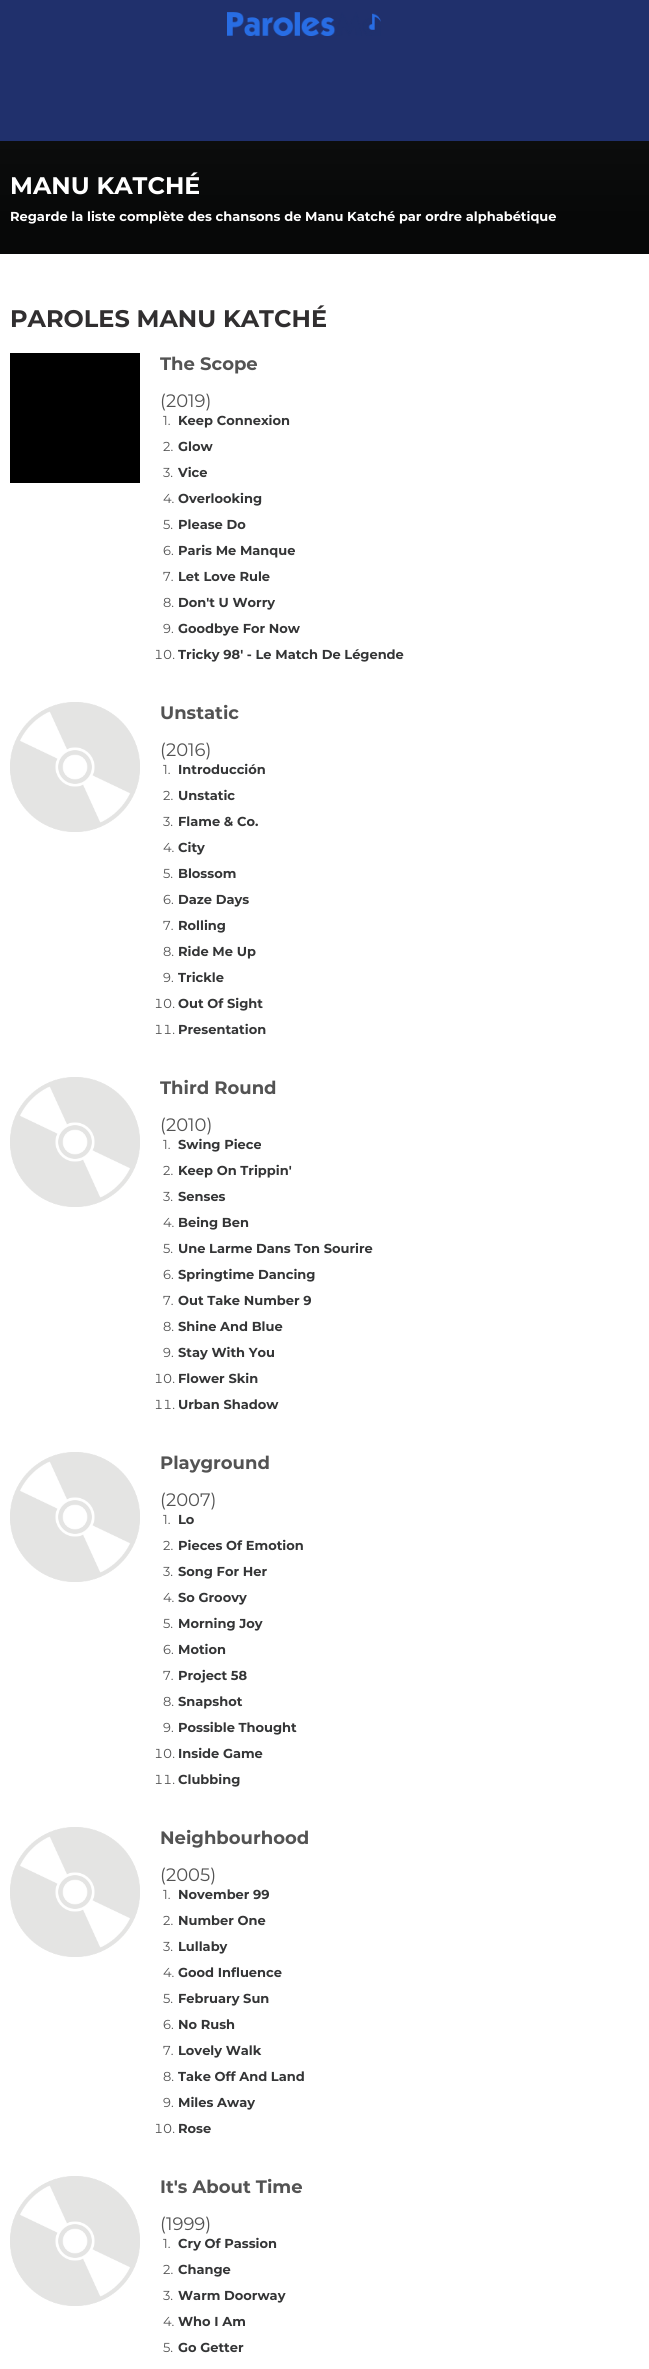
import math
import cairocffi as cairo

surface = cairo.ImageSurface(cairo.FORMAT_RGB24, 649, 2369)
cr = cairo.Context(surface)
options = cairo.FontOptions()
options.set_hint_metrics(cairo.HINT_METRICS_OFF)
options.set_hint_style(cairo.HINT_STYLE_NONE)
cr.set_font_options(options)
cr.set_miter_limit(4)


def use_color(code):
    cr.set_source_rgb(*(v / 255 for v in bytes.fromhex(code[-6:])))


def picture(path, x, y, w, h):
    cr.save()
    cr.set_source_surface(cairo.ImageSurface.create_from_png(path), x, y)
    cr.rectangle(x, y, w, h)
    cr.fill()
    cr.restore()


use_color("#ffffff")
cr.paint()
use_color("#20306c")
cr.rectangle(0, 0, 649, 141)
cr.fill()
picture("img1.png", 227, 12, 154, 24)
gradient = cairo.LinearGradient(325, 141, 325, 254)
gradient.add_color_stop_rgba(0, 0.047, 0.051, 0.051, 1)
gradient.add_color_stop_rgba(0.7, 0.027, 0.031, 0.031, 1)
cr.set_source(gradient)
cr.rectangle(0, 141, 649, 113)
cr.fill()
cr.select_font_face("Montserrat", cairo.FONT_SLANT_NORMAL, cairo.FONT_WEIGHT_BOLD)
cr.set_font_size(24)
use_color("#ffffff")
cr.move_to(10, 194)
cr.show_text("MANU KATCHÉ")
cr.set_font_size(13)
cr.move_to(10, 221)
cr.show_text("Regarde la liste complète des chansons de Manu Katché par ordre alphabétique")
cr.set_font_size(24)
use_color("#312f30")
cr.move_to(10, 327)
cr.show_text("PAROLES MANU KATCHÉ")
use_color("#000000")
cr.rectangle(10, 353, 130, 130)
cr.fill()
cr.set_font_size(18)
use_color("#535353")
cr.move_to(160, 370)
cr.show_text("The Scope")
cr.select_font_face("Montserrat")
cr.move_to(160, 407)
cr.show_text("(2019)")
cr.set_font_size(13)
cr.move_to(163, 425)
cr.show_text("1.")
cr.select_font_face("Montserrat", cairo.FONT_SLANT_NORMAL, cairo.FONT_WEIGHT_BOLD)
use_color("#343536")
cr.move_to(178, 425)
cr.show_text("Keep Connexion")
cr.select_font_face("Montserrat")
use_color("#535353")
cr.move_to(163, 451)
cr.show_text("2.")
cr.select_font_face("Montserrat", cairo.FONT_SLANT_NORMAL, cairo.FONT_WEIGHT_BOLD)
use_color("#343536")
cr.move_to(178, 451)
cr.show_text("Glow")
cr.select_font_face("Montserrat")
use_color("#535353")
cr.move_to(163, 477)
cr.show_text("3.")
cr.select_font_face("Montserrat", cairo.FONT_SLANT_NORMAL, cairo.FONT_WEIGHT_BOLD)
use_color("#343536")
cr.move_to(178, 477)
cr.show_text("Vice")
cr.select_font_face("Montserrat")
use_color("#535353")
cr.move_to(163, 503)
cr.show_text("4.")
cr.select_font_face("Montserrat", cairo.FONT_SLANT_NORMAL, cairo.FONT_WEIGHT_BOLD)
use_color("#343536")
cr.move_to(178, 503)
cr.show_text("Overlooking")
cr.select_font_face("Montserrat")
use_color("#535353")
cr.move_to(163, 529)
cr.show_text("5.")
cr.select_font_face("Montserrat", cairo.FONT_SLANT_NORMAL, cairo.FONT_WEIGHT_BOLD)
use_color("#343536")
cr.move_to(178, 529)
cr.show_text("Please Do")
cr.select_font_face("Montserrat")
use_color("#535353")
cr.move_to(163, 555)
cr.show_text("6.")
cr.select_font_face("Montserrat", cairo.FONT_SLANT_NORMAL, cairo.FONT_WEIGHT_BOLD)
use_color("#343536")
cr.move_to(178, 555)
cr.show_text("Paris Me Manque")
cr.select_font_face("Montserrat")
use_color("#535353")
cr.move_to(163, 581)
cr.show_text("7.")
cr.select_font_face("Montserrat", cairo.FONT_SLANT_NORMAL, cairo.FONT_WEIGHT_BOLD)
use_color("#343536")
cr.move_to(178, 581)
cr.show_text("Let Love Rule")
cr.select_font_face("Montserrat")
use_color("#535353")
cr.move_to(163, 607)
cr.show_text("8.")
cr.select_font_face("Montserrat", cairo.FONT_SLANT_NORMAL, cairo.FONT_WEIGHT_BOLD)
use_color("#343536")
cr.move_to(178, 607)
cr.show_text("Don't U Worry")
cr.select_font_face("Montserrat")
use_color("#535353")
cr.move_to(163, 633)
cr.show_text("9.")
cr.select_font_face("Montserrat", cairo.FONT_SLANT_NORMAL, cairo.FONT_WEIGHT_BOLD)
use_color("#343536")
cr.move_to(178, 633)
cr.show_text("Goodbye For Now")
cr.select_font_face("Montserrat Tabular")
use_color("#535353")
cr.move_to(154, 659)
cr.show_text("10.")
cr.select_font_face("Montserrat", cairo.FONT_SLANT_NORMAL, cairo.FONT_WEIGHT_BOLD)
use_color("#343536")
cr.move_to(178, 659)
cr.show_text("Tricky 98' - Le Match De Légende")
picture("img2.png", 10, 702, 130, 130)
cr.set_font_size(18)
use_color("#535353")
cr.move_to(160, 719)
cr.show_text("Unstatic")
cr.select_font_face("Montserrat")
cr.move_to(160, 756)
cr.show_text("(2016)")
cr.set_font_size(13)
cr.move_to(163, 774)
cr.show_text("1.")
cr.select_font_face("Montserrat", cairo.FONT_SLANT_NORMAL, cairo.FONT_WEIGHT_BOLD)
use_color("#343536")
cr.move_to(178, 774)
cr.show_text("Introducción")
cr.select_font_face("Montserrat")
use_color("#535353")
cr.move_to(163, 800)
cr.show_text("2.")
cr.select_font_face("Montserrat", cairo.FONT_SLANT_NORMAL, cairo.FONT_WEIGHT_BOLD)
use_color("#343536")
cr.move_to(178, 800)
cr.show_text("Unstatic")
cr.select_font_face("Montserrat")
use_color("#535353")
cr.move_to(163, 826)
cr.show_text("3.")
cr.select_font_face("Montserrat", cairo.FONT_SLANT_NORMAL, cairo.FONT_WEIGHT_BOLD)
use_color("#343536")
cr.move_to(178, 826)
cr.show_text("Flame & Co.")
cr.select_font_face("Montserrat")
use_color("#535353")
cr.move_to(163, 852)
cr.show_text("4.")
cr.select_font_face("Montserrat", cairo.FONT_SLANT_NORMAL, cairo.FONT_WEIGHT_BOLD)
use_color("#343536")
cr.move_to(178, 852)
cr.show_text("City")
cr.select_font_face("Montserrat")
use_color("#535353")
cr.move_to(163, 878)
cr.show_text("5.")
cr.select_font_face("Montserrat", cairo.FONT_SLANT_NORMAL, cairo.FONT_WEIGHT_BOLD)
use_color("#343536")
cr.move_to(178, 878)
cr.show_text("Blossom")
cr.select_font_face("Montserrat")
use_color("#535353")
cr.move_to(163, 904)
cr.show_text("6.")
cr.select_font_face("Montserrat", cairo.FONT_SLANT_NORMAL, cairo.FONT_WEIGHT_BOLD)
use_color("#343536")
cr.move_to(178, 904)
cr.show_text("Daze Days")
cr.select_font_face("Montserrat")
use_color("#535353")
cr.move_to(163, 930)
cr.show_text("7.")
cr.select_font_face("Montserrat", cairo.FONT_SLANT_NORMAL, cairo.FONT_WEIGHT_BOLD)
use_color("#343536")
cr.move_to(178, 930)
cr.show_text("Rolling")
cr.select_font_face("Montserrat")
use_color("#535353")
cr.move_to(163, 956)
cr.show_text("8.")
cr.select_font_face("Montserrat", cairo.FONT_SLANT_NORMAL, cairo.FONT_WEIGHT_BOLD)
use_color("#343536")
cr.move_to(178, 956)
cr.show_text("Ride Me Up")
cr.select_font_face("Montserrat")
use_color("#535353")
cr.move_to(163, 982)
cr.show_text("9.")
cr.select_font_face("Montserrat", cairo.FONT_SLANT_NORMAL, cairo.FONT_WEIGHT_BOLD)
use_color("#343536")
cr.move_to(178, 982)
cr.show_text("Trickle")
cr.select_font_face("Montserrat Tabular")
use_color("#535353")
cr.move_to(154, 1008)
cr.show_text("10.")
cr.select_font_face("Montserrat", cairo.FONT_SLANT_NORMAL, cairo.FONT_WEIGHT_BOLD)
use_color("#343536")
cr.move_to(178, 1008)
cr.show_text("Out Of Sight")
cr.select_font_face("Montserrat Tabular")
use_color("#535353")
cr.move_to(154, 1034)
cr.show_text("11.")
cr.select_font_face("Montserrat", cairo.FONT_SLANT_NORMAL, cairo.FONT_WEIGHT_BOLD)
use_color("#343536")
cr.move_to(178, 1034)
cr.show_text("Presentation")
picture("img2.png", 10, 1077, 130, 130)
cr.set_font_size(18)
use_color("#535353")
cr.move_to(160, 1094)
cr.show_text("Third Round")
cr.select_font_face("Montserrat")
cr.move_to(160, 1131)
cr.show_text("(2010)")
cr.set_font_size(13)
cr.move_to(163, 1149)
cr.show_text("1.")
cr.select_font_face("Montserrat", cairo.FONT_SLANT_NORMAL, cairo.FONT_WEIGHT_BOLD)
use_color("#343536")
cr.move_to(178, 1149)
cr.show_text("Swing Piece")
cr.select_font_face("Montserrat")
use_color("#535353")
cr.move_to(163, 1175)
cr.show_text("2.")
cr.select_font_face("Montserrat", cairo.FONT_SLANT_NORMAL, cairo.FONT_WEIGHT_BOLD)
use_color("#343536")
cr.move_to(178, 1175)
cr.show_text("Keep On Trippin'")
cr.select_font_face("Montserrat")
use_color("#535353")
cr.move_to(163, 1201)
cr.show_text("3.")
cr.select_font_face("Montserrat", cairo.FONT_SLANT_NORMAL, cairo.FONT_WEIGHT_BOLD)
use_color("#343536")
cr.move_to(178, 1201)
cr.show_text("Senses")
cr.select_font_face("Montserrat")
use_color("#535353")
cr.move_to(163, 1227)
cr.show_text("4.")
cr.select_font_face("Montserrat", cairo.FONT_SLANT_NORMAL, cairo.FONT_WEIGHT_BOLD)
use_color("#343536")
cr.move_to(178, 1227)
cr.show_text("Being Ben")
cr.select_font_face("Montserrat")
use_color("#535353")
cr.move_to(163, 1253)
cr.show_text("5.")
cr.select_font_face("Montserrat", cairo.FONT_SLANT_NORMAL, cairo.FONT_WEIGHT_BOLD)
use_color("#343536")
cr.move_to(178, 1253)
cr.show_text("Une Larme Dans Ton Sourire")
cr.select_font_face("Montserrat")
use_color("#535353")
cr.move_to(163, 1279)
cr.show_text("6.")
cr.select_font_face("Montserrat", cairo.FONT_SLANT_NORMAL, cairo.FONT_WEIGHT_BOLD)
use_color("#343536")
cr.move_to(178, 1279)
cr.show_text("Springtime Dancing")
cr.select_font_face("Montserrat")
use_color("#535353")
cr.move_to(163, 1305)
cr.show_text("7.")
cr.select_font_face("Montserrat", cairo.FONT_SLANT_NORMAL, cairo.FONT_WEIGHT_BOLD)
use_color("#343536")
cr.move_to(178, 1305)
cr.show_text("Out Take Number 9")
cr.select_font_face("Montserrat")
use_color("#535353")
cr.move_to(163, 1331)
cr.show_text("8.")
cr.select_font_face("Montserrat", cairo.FONT_SLANT_NORMAL, cairo.FONT_WEIGHT_BOLD)
use_color("#343536")
cr.move_to(178, 1331)
cr.show_text("Shine And Blue")
cr.select_font_face("Montserrat")
use_color("#535353")
cr.move_to(163, 1357)
cr.show_text("9.")
cr.select_font_face("Montserrat", cairo.FONT_SLANT_NORMAL, cairo.FONT_WEIGHT_BOLD)
use_color("#343536")
cr.move_to(178, 1357)
cr.show_text("Stay With You")
cr.select_font_face("Montserrat Tabular")
use_color("#535353")
cr.move_to(154, 1383)
cr.show_text("10.")
cr.select_font_face("Montserrat", cairo.FONT_SLANT_NORMAL, cairo.FONT_WEIGHT_BOLD)
use_color("#343536")
cr.move_to(178, 1383)
cr.show_text("Flower Skin")
cr.select_font_face("Montserrat Tabular")
use_color("#535353")
cr.move_to(154, 1409)
cr.show_text("11.")
cr.select_font_face("Montserrat", cairo.FONT_SLANT_NORMAL, cairo.FONT_WEIGHT_BOLD)
use_color("#343536")
cr.move_to(178, 1409)
cr.show_text("Urban Shadow")
picture("img2.png", 10, 1452, 130, 130)
cr.set_font_size(18)
use_color("#535353")
cr.move_to(160, 1469)
cr.show_text("Playground")
cr.select_font_face("Montserrat")
cr.move_to(160, 1506)
cr.show_text("(2007)")
cr.set_font_size(13)
cr.move_to(163, 1524)
cr.show_text("1.")
cr.select_font_face("Montserrat", cairo.FONT_SLANT_NORMAL, cairo.FONT_WEIGHT_BOLD)
use_color("#343536")
cr.move_to(178, 1524)
cr.show_text("Lo")
cr.select_font_face("Montserrat")
use_color("#535353")
cr.move_to(163, 1550)
cr.show_text("2.")
cr.select_font_face("Montserrat", cairo.FONT_SLANT_NORMAL, cairo.FONT_WEIGHT_BOLD)
use_color("#343536")
cr.move_to(178, 1550)
cr.show_text("Pieces Of Emotion")
cr.select_font_face("Montserrat")
use_color("#535353")
cr.move_to(163, 1576)
cr.show_text("3.")
cr.select_font_face("Montserrat", cairo.FONT_SLANT_NORMAL, cairo.FONT_WEIGHT_BOLD)
use_color("#343536")
cr.move_to(178, 1576)
cr.show_text("Song For Her")
cr.select_font_face("Montserrat")
use_color("#535353")
cr.move_to(163, 1602)
cr.show_text("4.")
cr.select_font_face("Montserrat", cairo.FONT_SLANT_NORMAL, cairo.FONT_WEIGHT_BOLD)
use_color("#343536")
cr.move_to(178, 1602)
cr.show_text("So Groovy")
cr.select_font_face("Montserrat")
use_color("#535353")
cr.move_to(163, 1628)
cr.show_text("5.")
cr.select_font_face("Montserrat", cairo.FONT_SLANT_NORMAL, cairo.FONT_WEIGHT_BOLD)
use_color("#343536")
cr.move_to(178, 1628)
cr.show_text("Morning Joy")
cr.select_font_face("Montserrat")
use_color("#535353")
cr.move_to(163, 1654)
cr.show_text("6.")
cr.select_font_face("Montserrat", cairo.FONT_SLANT_NORMAL, cairo.FONT_WEIGHT_BOLD)
use_color("#343536")
cr.move_to(178, 1654)
cr.show_text("Motion")
cr.select_font_face("Montserrat")
use_color("#535353")
cr.move_to(163, 1680)
cr.show_text("7.")
cr.select_font_face("Montserrat", cairo.FONT_SLANT_NORMAL, cairo.FONT_WEIGHT_BOLD)
use_color("#343536")
cr.move_to(178, 1680)
cr.show_text("Project 58")
cr.select_font_face("Montserrat")
use_color("#535353")
cr.move_to(163, 1706)
cr.show_text("8.")
cr.select_font_face("Montserrat", cairo.FONT_SLANT_NORMAL, cairo.FONT_WEIGHT_BOLD)
use_color("#343536")
cr.move_to(178, 1706)
cr.show_text("Snapshot")
cr.select_font_face("Montserrat")
use_color("#535353")
cr.move_to(163, 1732)
cr.show_text("9.")
cr.select_font_face("Montserrat", cairo.FONT_SLANT_NORMAL, cairo.FONT_WEIGHT_BOLD)
use_color("#343536")
cr.move_to(178, 1732)
cr.show_text("Possible Thought")
cr.select_font_face("Montserrat Tabular")
use_color("#535353")
cr.move_to(154, 1758)
cr.show_text("10.")
cr.select_font_face("Montserrat", cairo.FONT_SLANT_NORMAL, cairo.FONT_WEIGHT_BOLD)
use_color("#343536")
cr.move_to(178, 1758)
cr.show_text("Inside Game")
cr.select_font_face("Montserrat Tabular")
use_color("#535353")
cr.move_to(154, 1784)
cr.show_text("11.")
cr.select_font_face("Montserrat", cairo.FONT_SLANT_NORMAL, cairo.FONT_WEIGHT_BOLD)
use_color("#343536")
cr.move_to(178, 1784)
cr.show_text("Clubbing")
picture("img2.png", 10, 1827, 130, 130)
cr.set_font_size(18)
use_color("#535353")
cr.move_to(160, 1844)
cr.show_text("Neighbourhood")
cr.select_font_face("Montserrat")
cr.move_to(160, 1881)
cr.show_text("(2005)")
cr.set_font_size(13)
cr.move_to(163, 1899)
cr.show_text("1.")
cr.select_font_face("Montserrat", cairo.FONT_SLANT_NORMAL, cairo.FONT_WEIGHT_BOLD)
use_color("#343536")
cr.move_to(178, 1899)
cr.show_text("November 99")
cr.select_font_face("Montserrat")
use_color("#535353")
cr.move_to(163, 1925)
cr.show_text("2.")
cr.select_font_face("Montserrat", cairo.FONT_SLANT_NORMAL, cairo.FONT_WEIGHT_BOLD)
use_color("#343536")
cr.move_to(178, 1925)
cr.show_text("Number One")
cr.select_font_face("Montserrat")
use_color("#535353")
cr.move_to(163, 1951)
cr.show_text("3.")
cr.select_font_face("Montserrat", cairo.FONT_SLANT_NORMAL, cairo.FONT_WEIGHT_BOLD)
use_color("#343536")
cr.move_to(178, 1951)
cr.show_text("Lullaby")
cr.select_font_face("Montserrat")
use_color("#535353")
cr.move_to(163, 1977)
cr.show_text("4.")
cr.select_font_face("Montserrat", cairo.FONT_SLANT_NORMAL, cairo.FONT_WEIGHT_BOLD)
use_color("#343536")
cr.move_to(178, 1977)
cr.show_text("Good Influence")
cr.select_font_face("Montserrat")
use_color("#535353")
cr.move_to(163, 2003)
cr.show_text("5.")
cr.select_font_face("Montserrat", cairo.FONT_SLANT_NORMAL, cairo.FONT_WEIGHT_BOLD)
use_color("#343536")
cr.move_to(178, 2003)
cr.show_text("February Sun")
cr.select_font_face("Montserrat")
use_color("#535353")
cr.move_to(163, 2029)
cr.show_text("6.")
cr.select_font_face("Montserrat", cairo.FONT_SLANT_NORMAL, cairo.FONT_WEIGHT_BOLD)
use_color("#343536")
cr.move_to(178, 2029)
cr.show_text("No Rush")
cr.select_font_face("Montserrat")
use_color("#535353")
cr.move_to(163, 2055)
cr.show_text("7.")
cr.select_font_face("Montserrat", cairo.FONT_SLANT_NORMAL, cairo.FONT_WEIGHT_BOLD)
use_color("#343536")
cr.move_to(178, 2055)
cr.show_text("Lovely Walk")
cr.select_font_face("Montserrat")
use_color("#535353")
cr.move_to(163, 2081)
cr.show_text("8.")
cr.select_font_face("Montserrat", cairo.FONT_SLANT_NORMAL, cairo.FONT_WEIGHT_BOLD)
use_color("#343536")
cr.move_to(178, 2081)
cr.show_text("Take Off And Land")
cr.select_font_face("Montserrat")
use_color("#535353")
cr.move_to(163, 2107)
cr.show_text("9.")
cr.select_font_face("Montserrat", cairo.FONT_SLANT_NORMAL, cairo.FONT_WEIGHT_BOLD)
use_color("#343536")
cr.move_to(178, 2107)
cr.show_text("Miles Away")
cr.select_font_face("Montserrat Tabular")
use_color("#535353")
cr.move_to(154, 2133)
cr.show_text("10.")
cr.select_font_face("Montserrat", cairo.FONT_SLANT_NORMAL, cairo.FONT_WEIGHT_BOLD)
use_color("#343536")
cr.move_to(178, 2133)
cr.show_text("Rose")
picture("img3.png", 10, 2176, 130, 130)
cr.set_font_size(18)
use_color("#535353")
cr.move_to(160, 2193)
cr.show_text("It's About Time")
cr.select_font_face("Montserrat")
cr.move_to(160, 2230)
cr.show_text("(1999)")
cr.set_font_size(13)
cr.move_to(163, 2248)
cr.show_text("1.")
cr.select_font_face("Montserrat", cairo.FONT_SLANT_NORMAL, cairo.FONT_WEIGHT_BOLD)
use_color("#343536")
cr.move_to(178, 2248)
cr.show_text("Cry Of Passion")
cr.select_font_face("Montserrat")
use_color("#535353")
cr.move_to(163, 2274)
cr.show_text("2.")
cr.select_font_face("Montserrat", cairo.FONT_SLANT_NORMAL, cairo.FONT_WEIGHT_BOLD)
use_color("#343536")
cr.move_to(178, 2274)
cr.show_text("Change")
cr.select_font_face("Montserrat")
use_color("#535353")
cr.move_to(163, 2300)
cr.show_text("3.")
cr.select_font_face("Montserrat", cairo.FONT_SLANT_NORMAL, cairo.FONT_WEIGHT_BOLD)
use_color("#343536")
cr.move_to(178, 2300)
cr.show_text("Warm Doorway")
cr.select_font_face("Montserrat")
use_color("#535353")
cr.move_to(163, 2326)
cr.show_text("4.")
cr.select_font_face("Montserrat", cairo.FONT_SLANT_NORMAL, cairo.FONT_WEIGHT_BOLD)
use_color("#343536")
cr.move_to(178, 2326)
cr.show_text("Who I Am")
cr.select_font_face("Montserrat")
use_color("#535353")
cr.move_to(163, 2352)
cr.show_text("5.")
cr.select_font_face("Montserrat", cairo.FONT_SLANT_NORMAL, cairo.FONT_WEIGHT_BOLD)
use_color("#343536")
cr.move_to(178, 2352)
cr.show_text("Go Getter")
surface.write_to_png("result.png")
